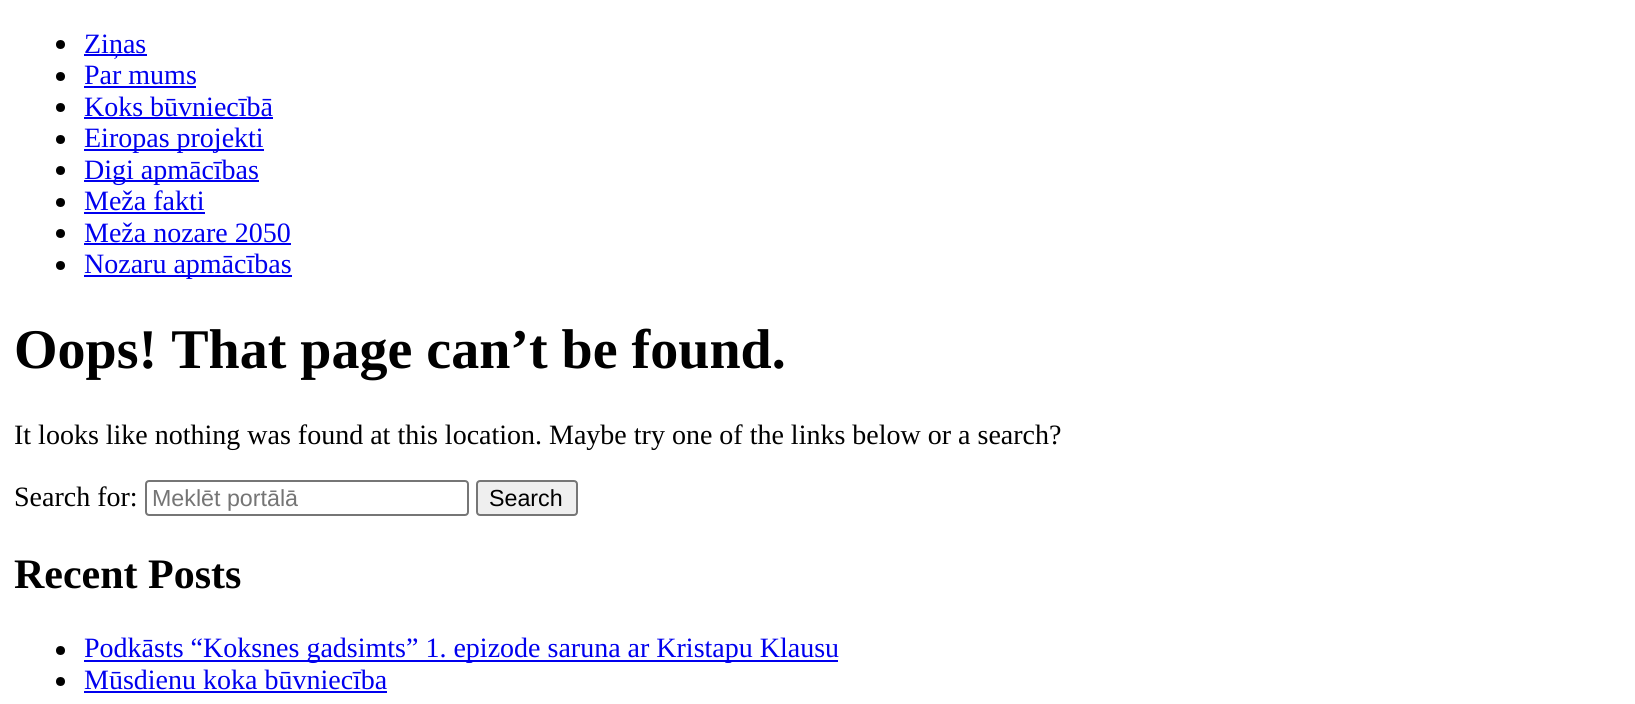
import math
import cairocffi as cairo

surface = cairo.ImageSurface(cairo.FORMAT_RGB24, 1635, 704)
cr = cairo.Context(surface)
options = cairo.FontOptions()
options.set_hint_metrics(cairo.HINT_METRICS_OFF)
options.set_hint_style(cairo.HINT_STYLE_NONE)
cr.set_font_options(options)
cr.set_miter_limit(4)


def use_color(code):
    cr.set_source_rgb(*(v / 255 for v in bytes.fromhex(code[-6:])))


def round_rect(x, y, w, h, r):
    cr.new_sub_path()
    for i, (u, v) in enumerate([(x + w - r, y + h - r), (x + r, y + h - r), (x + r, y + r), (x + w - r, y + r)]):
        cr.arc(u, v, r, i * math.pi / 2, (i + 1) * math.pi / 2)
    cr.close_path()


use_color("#ffffff")
cr.paint()
use_color("#000000")
cr.arc(60.5, 44.5, 4.5, 0, 2 * math.pi)
cr.fill()
use_color("#0000ee")
cr.rectangle(84, 54, 63, 2)
cr.fill()
cr.select_font_face("Liberation Serif")
cr.set_font_size(28)
cr.move_to(84, 53)
cr.show_text("Ziņas")
use_color("#000000")
cr.new_path()
cr.arc(60.5, 76.5, 4.5, 0, 2 * math.pi)
cr.fill()
use_color("#0000ee")
cr.move_to(84, 84)
cr.show_text("Par mums")
cr.rectangle(84, 86, 112, 2)
cr.fill()
use_color("#000000")
cr.arc(60.5, 107.5, 4.5, 0, 2 * math.pi)
cr.fill()
use_color("#0000ee")
cr.move_to(84, 116)
cr.show_text("Koks būvniecībā")
cr.rectangle(84, 117, 189, 2)
cr.fill()
use_color("#000000")
cr.arc(60.5, 139.5, 4.5, 0, 2 * math.pi)
cr.fill()
use_color("#0000ee")
cr.rectangle(84, 149, 180, 2)
cr.fill()
cr.move_to(84, 147)
cr.show_text("Eiropas projekti")
use_color("#000000")
cr.new_path()
cr.arc(60.5, 170.5, 4.5, 0, 2 * math.pi)
cr.fill()
use_color("#0000ee")
cr.rectangle(84, 180, 175, 2)
cr.fill()
cr.move_to(84, 179)
cr.show_text("Digi apmācības")
use_color("#000000")
cr.new_path()
cr.arc(60.5, 202.5, 4.5, 0, 2 * math.pi)
cr.fill()
use_color("#0000ee")
cr.move_to(84, 210)
cr.show_text("Meža fakti")
cr.rectangle(84, 212, 121, 2)
cr.fill()
use_color("#000000")
cr.arc(60.5, 233.5, 4.5, 0, 2 * math.pi)
cr.fill()
use_color("#0000ee")
cr.move_to(84, 242)
cr.show_text("Meža nozare 2050")
cr.rectangle(84, 243, 207, 2)
cr.fill()
use_color("#000000")
cr.arc(60.5, 265.5, 4.5, 0, 2 * math.pi)
cr.fill()
use_color("#0000ee")
cr.rectangle(84, 275, 208, 2)
cr.fill()
cr.move_to(84, 273)
cr.show_text("Nozaru apmācības")
cr.select_font_face("Liberation Serif", cairo.FONT_SLANT_NORMAL, cairo.FONT_WEIGHT_BOLD)
cr.set_font_size(56)
use_color("#000000")
cr.move_to(14, 368)
cr.show_text("Oops! That page can’t be found.")
cr.select_font_face("Liberation Serif")
cr.set_font_size(28)
cr.move_to(14, 444)
cr.show_text("It looks like nothing was found at this location. Maybe try one of the links below or a search?")
cr.move_to(14, 506)
cr.show_text("Search for:")
round_rect(146, 481, 322, 34, 3)
use_color("#767676")
cr.stroke()
cr.select_font_face("Liberation Sans")
cr.set_font_size(23.25)
use_color("#757575")
cr.move_to(152, 506)
cr.show_text("Meklēt portālā")
use_color("#efefef")
round_rect(477, 481, 100, 34, 3)
cr.fill_preserve()
use_color("#767676")
cr.stroke()
use_color("#000000")
cr.move_to(489, 506)
cr.show_text("Search")
cr.select_font_face("Liberation Serif", cairo.FONT_SLANT_NORMAL, cairo.FONT_WEIGHT_BOLD)
cr.set_font_size(42)
cr.move_to(14, 588)
cr.show_text("Recent Posts")
cr.new_path()
cr.arc(60.5, 650.5, 4.5, 0, 2 * math.pi)
cr.fill()
use_color("#0000ee")
cr.rectangle(84, 660, 754, 2)
cr.fill()
cr.select_font_face("Liberation Serif")
cr.set_font_size(28)
cr.move_to(84, 657)
cr.show_text("Podkāsts “Koksnes gadsimts” 1. epizode saruna ar Kristapu Klausu")
use_color("#000000")
cr.new_path()
cr.arc(60.5, 681.5, 4.5, 0, 2 * math.pi)
cr.fill()
use_color("#0000ee")
cr.move_to(84, 689)
cr.show_text("Mūsdienu koka būvniecība")
cr.rectangle(84, 691, 303, 2)
cr.fill()
surface.write_to_png("result.png")
